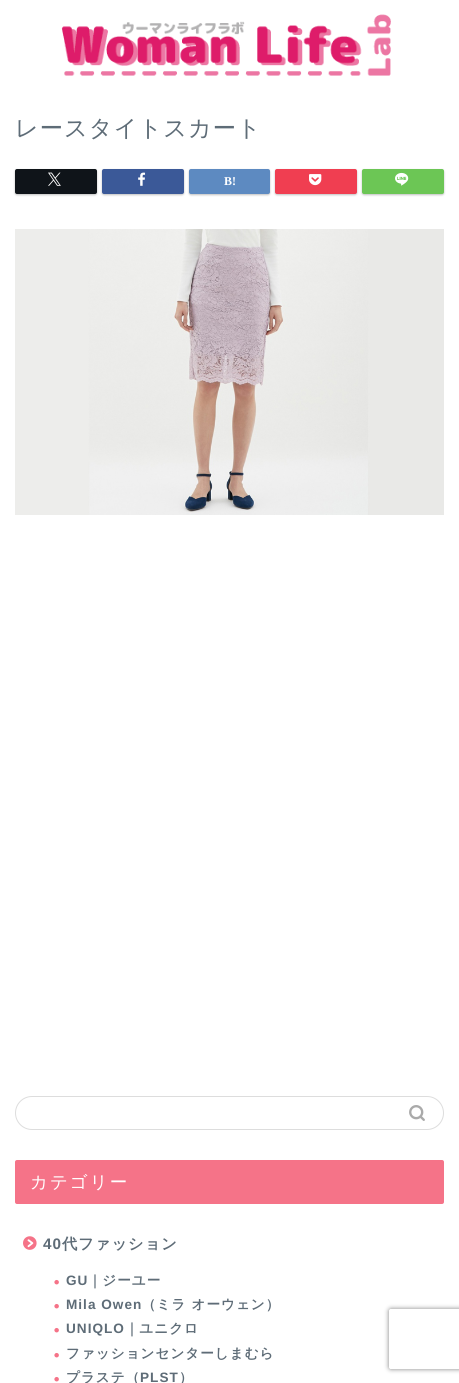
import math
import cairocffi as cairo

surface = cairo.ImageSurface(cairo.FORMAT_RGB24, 459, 1383)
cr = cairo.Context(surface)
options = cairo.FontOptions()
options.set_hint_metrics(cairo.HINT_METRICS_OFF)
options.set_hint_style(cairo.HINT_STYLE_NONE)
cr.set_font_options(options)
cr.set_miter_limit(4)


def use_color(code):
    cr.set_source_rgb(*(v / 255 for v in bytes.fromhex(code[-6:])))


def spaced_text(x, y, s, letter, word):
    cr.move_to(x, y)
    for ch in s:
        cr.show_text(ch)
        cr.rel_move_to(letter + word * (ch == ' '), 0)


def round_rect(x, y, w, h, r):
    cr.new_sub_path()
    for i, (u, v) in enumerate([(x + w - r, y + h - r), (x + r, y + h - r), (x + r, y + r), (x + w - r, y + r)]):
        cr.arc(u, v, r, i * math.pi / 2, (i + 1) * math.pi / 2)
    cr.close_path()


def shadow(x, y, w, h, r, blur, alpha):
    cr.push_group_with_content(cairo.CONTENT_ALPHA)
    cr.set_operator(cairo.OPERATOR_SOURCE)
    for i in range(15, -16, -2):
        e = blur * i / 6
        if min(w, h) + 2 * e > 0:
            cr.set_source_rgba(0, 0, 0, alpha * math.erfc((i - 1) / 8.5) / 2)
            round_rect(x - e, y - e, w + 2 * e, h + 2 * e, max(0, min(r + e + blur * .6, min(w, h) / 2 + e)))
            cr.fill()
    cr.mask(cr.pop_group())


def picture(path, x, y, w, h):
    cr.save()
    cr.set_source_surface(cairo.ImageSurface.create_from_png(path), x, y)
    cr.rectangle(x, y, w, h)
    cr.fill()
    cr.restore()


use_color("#ffffff")
cr.paint()
picture("img1.png", 61, 14, 330, 62)
cr.select_font_face("WenQuanYi Zen Hei Medium")
cr.set_font_size(23.25)
use_color("#5e6c77")
spaced_text(15, 136, "レースタイトスカート", 1, 0)
use_color("#000000")
shadow(15, 170, 82, 25, 2, 1, 0.25)
use_color("#0f1419")
round_rect(16, 170, 80, 23, 1)
cr.fill_preserve()
cr.stroke()
picture("img2.png", 48, 172, 13, 14)
use_color("#000000")
shadow(102, 170, 82, 25, 2, 1, 0.25)
use_color("#3b5998")
round_rect(103, 170, 80, 23, 1)
cr.fill_preserve()
cr.stroke()
picture("img3.png", 138, 172, 8, 14)
use_color("#000000")
shadow(189, 170, 81, 25, 2, 1, 0.25)
use_color("#5d8ac1")
round_rect(190, 170, 79, 23, 1)
cr.fill_preserve()
cr.stroke()
cr.select_font_face("Liberation Serif", cairo.FONT_SLANT_NORMAL, cairo.FONT_WEIGHT_BOLD)
cr.set_font_size(12)
use_color("#ffffff")
cr.move_to(224, 185)
cr.show_text("B!")
use_color("#000000")
shadow(275, 170, 82, 25, 2, 1, 0.25)
use_color("#f03e51")
round_rect(276, 170, 80, 23, 1)
cr.fill_preserve()
cr.stroke()
picture("img4.png", 309, 174, 13, 12)
use_color("#000000")
shadow(362, 170, 82, 25, 2, 1, 0.25)
use_color("#6cc655")
round_rect(363, 170, 80, 23, 1)
cr.fill_preserve()
cr.stroke()
picture("img5.png", 395, 172, 14, 14)
picture("img6.png", 15, 229, 429, 286)
round_rect(15.5, 1096.5, 428, 33, 16.5)
use_color("#dddddd")
cr.set_line_width(1)
cr.stroke()
picture("img7.png", 409, 1105, 16, 16)
use_color("#f57388")
round_rect(15, 1160, 429, 44, 2)
cr.fill()
cr.select_font_face("WenQuanYi Zen Hei Medium")
cr.set_font_size(17.5)
use_color("#ffffff")
spaced_text(30, 1188, "カテゴリー", 2, 0)
picture("img8.png", 23, 1236, 14, 14)
cr.select_font_face("Liberation Sans", cairo.FONT_SLANT_NORMAL, cairo.FONT_WEIGHT_BOLD)
cr.set_font_size(15.25)
use_color("#5e6c77")
spaced_text(43, 1249, "40", 1, 0)
cr.select_font_face("WenQuanYi Zen Hei", cairo.FONT_SLANT_NORMAL, cairo.FONT_WEIGHT_BOLD)
spaced_text(62, 1249, "代ファッション", 1, 0)
cr.set_font_size(24)
use_color("#f57388")
spaced_text(44, 1291, "・", 1, 0)
cr.select_font_face("Liberation Sans", cairo.FONT_SLANT_NORMAL, cairo.FONT_WEIGHT_BOLD)
cr.set_font_size(13.6)
use_color("#5e6c77")
spaced_text(66, 1285, "GU", 1, 0)
cr.select_font_face("WenQuanYi Zen Hei", cairo.FONT_SLANT_NORMAL, cairo.FONT_WEIGHT_BOLD)
spaced_text(88, 1285, "｜ジーユー", 1, 0)
cr.set_font_size(24)
use_color("#f57388")
spaced_text(44, 1315, "・", 1, 0)
cr.select_font_face("Liberation Sans", cairo.FONT_SLANT_NORMAL, cairo.FONT_WEIGHT_BOLD)
cr.set_font_size(13.6)
use_color("#5e6c77")
spaced_text(66, 1309, "Mila Owen", 1, 0)
cr.select_font_face("WenQuanYi Zen Hei", cairo.FONT_SLANT_NORMAL, cairo.FONT_WEIGHT_BOLD)
spaced_text(142, 1309, "（ミラ オーウェン）", 1, 0)
cr.set_font_size(24)
use_color("#f57388")
spaced_text(44, 1339, "・", 1, 0)
cr.select_font_face("Liberation Sans", cairo.FONT_SLANT_NORMAL, cairo.FONT_WEIGHT_BOLD)
cr.set_font_size(13.6)
use_color("#5e6c77")
spaced_text(66, 1333, "UNIQLO", 1, 0)
cr.select_font_face("WenQuanYi Zen Hei", cairo.FONT_SLANT_NORMAL, cairo.FONT_WEIGHT_BOLD)
spaced_text(125, 1333, "｜ユニクロ", 1, 0)
cr.set_font_size(24)
use_color("#f57388")
spaced_text(44, 1364, "・", 1, 0)
cr.set_font_size(13.6)
use_color("#5e6c77")
spaced_text(66, 1358, "ファッションセンターしまむら", 1, 0)
cr.set_font_size(24)
use_color("#f57388")
spaced_text(44, 1388, "・", 1, 0)
cr.set_font_size(13.6)
use_color("#5e6c77")
spaced_text(66, 1382, "プラステ（", 1, 0)
cr.select_font_face("Liberation Sans", cairo.FONT_SLANT_NORMAL, cairo.FONT_WEIGHT_BOLD)
spaced_text(140, 1382, "PLST", 1, 0)
cr.select_font_face("WenQuanYi Zen Hei", cairo.FONT_SLANT_NORMAL, cairo.FONT_WEIGHT_BOLD)
spaced_text(179, 1382, "）", 1, 0)
cr.save()
cr.set_fill_rule(cairo.FILL_RULE_EVEN_ODD)
cr.new_path()
cr.move_to(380, 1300)
cr.line_to(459, 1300)
cr.line_to(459, 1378)
cr.line_to(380, 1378)
cr.close_path()
cr.move_to(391, 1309)
cr.line_to(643, 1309)
cr.curve_to(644, 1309, 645, 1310, 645, 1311)
cr.line_to(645, 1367)
cr.curve_to(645, 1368, 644, 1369, 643, 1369)
cr.line_to(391, 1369)
cr.curve_to(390, 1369, 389, 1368, 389, 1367)
cr.line_to(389, 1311)
cr.curve_to(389, 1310, 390, 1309, 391, 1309)
cr.close_path()
cr.clip()
use_color("#808080")
shadow(389, 1309, 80, 60, 2, 2.5, 1)
cr.restore()
surface.write_to_png("result.png")
